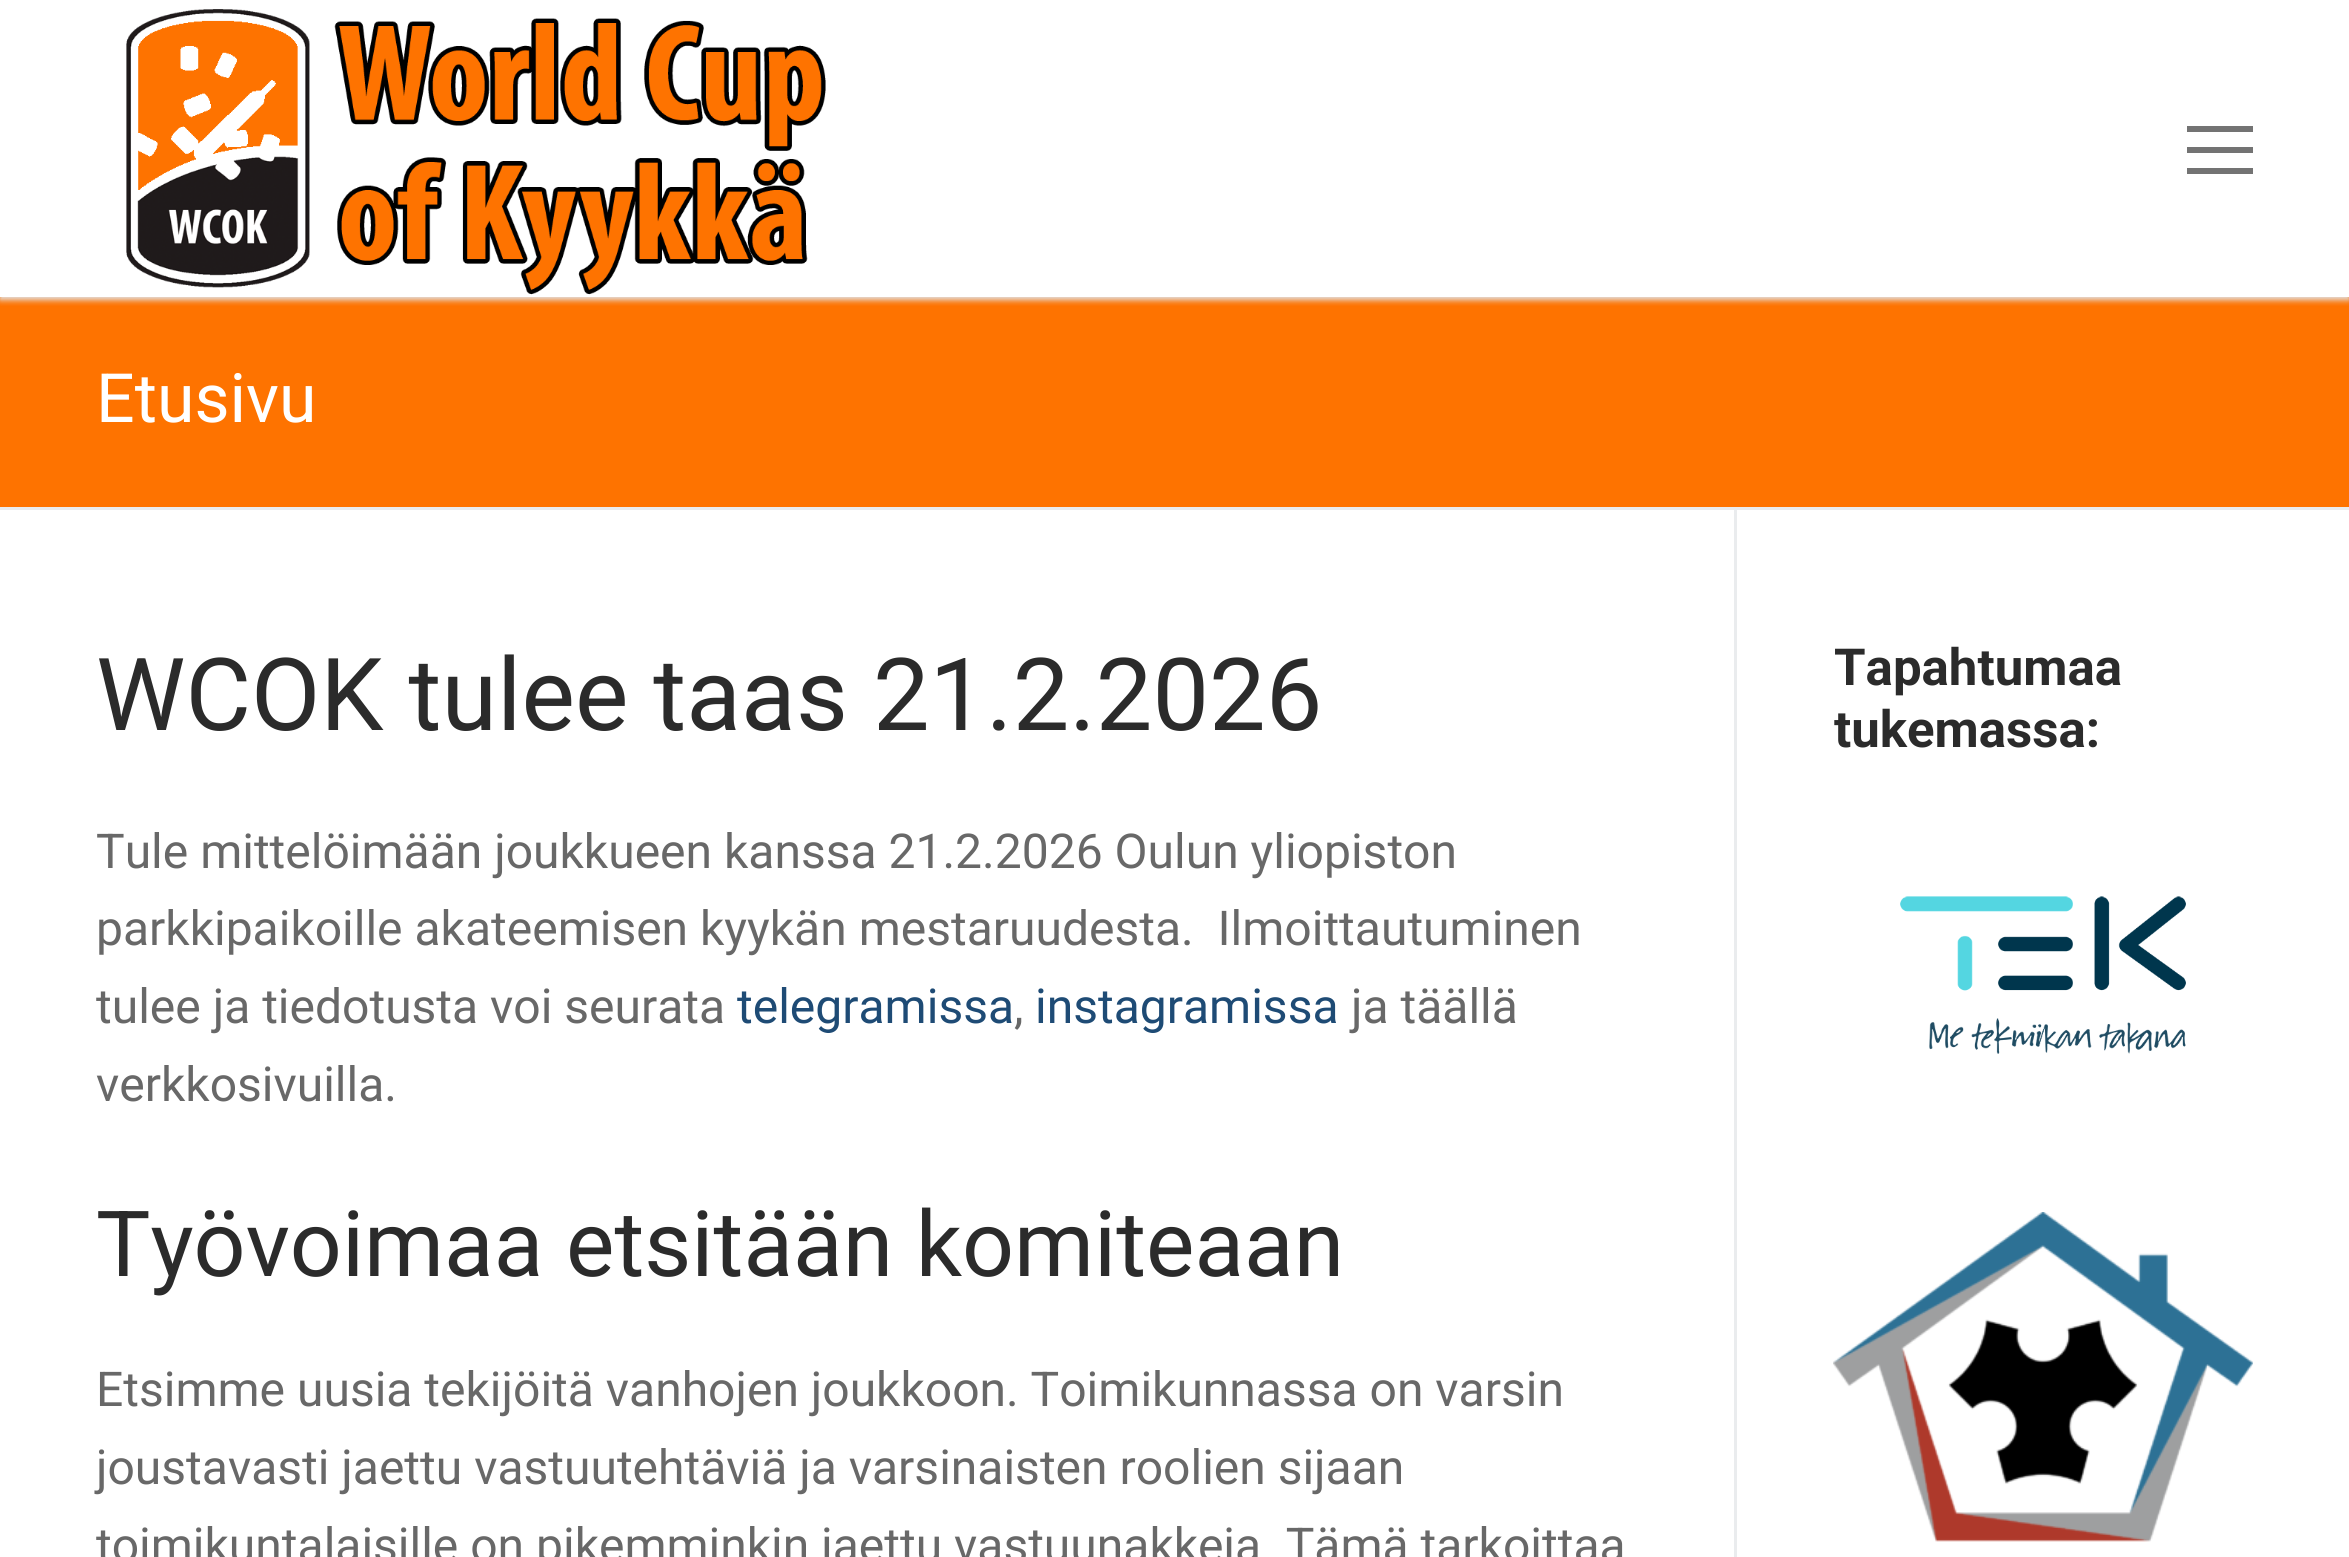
import math
import cairocffi as cairo

surface = cairo.ImageSurface(cairo.FORMAT_RGB24, 2349, 1557)
cr = cairo.Context(surface)
options = cairo.FontOptions()
options.set_hint_metrics(cairo.HINT_METRICS_OFF)
options.set_hint_style(cairo.HINT_STYLE_NONE)
cr.set_font_options(options)
cr.set_miter_limit(4)


def use_color(code):
    cr.set_source_rgb(*(v / 255 for v in bytes.fromhex(code[-6:])))


def round_rect(x, y, w, h, r):
    cr.new_sub_path()
    for i, (u, v) in enumerate([(x + w - r, y + h - r), (x + r, y + h - r), (x + r, y + r), (x + w - r, y + r)]):
        cr.arc(u, v, r, i * math.pi / 2, (i + 1) * math.pi / 2)
    cr.close_path()


def shadow(x, y, w, h, r, blur, alpha):
    cr.push_group_with_content(cairo.CONTENT_ALPHA)
    cr.set_operator(cairo.OPERATOR_SOURCE)
    for i in range(15, -16, -2):
        e = blur * i / 6
        if min(w, h) + 2 * e > 0:
            cr.set_source_rgba(0, 0, 0, alpha * math.erfc((i - 1) / 8.5) / 2)
            round_rect(x - e, y - e, w + 2 * e, h + 2 * e, max(0, min(r + e + blur * .6, min(w, h) / 2 + e)))
            cr.fill()
    cr.mask(cr.pop_group())


def picture(path, x, y, w, h):
    cr.save()
    cr.set_source_surface(cairo.ImageSurface.create_from_png(path), x, y)
    cr.rectangle(x, y, w, h)
    cr.fill()
    cr.restore()


use_color("#ffffff")
cr.paint()
use_color("#fe7300")
cr.rectangle(0, 297, 2349, 210)
cr.fill()
cr.save()
cr.rectangle(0, 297, 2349, 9)
cr.clip()
use_color("#e1e5ea")
shadow(0, 3, 2349, 297, 0, 3, 1)
cr.restore()
picture("img1.png", 126, 9, 700, 286)
use_color("#737373")
cr.rectangle(2187, 147, 66, 6)
cr.fill()
cr.rectangle(2187, 126, 66, 6)
cr.fill()
cr.rectangle(2187, 168, 66, 6)
cr.fill()
use_color("#eaecee")
cr.rectangle(0, 507, 2349, 3)
cr.fill()
cr.select_font_face("Roboto")
cr.set_font_size(68)
use_color("#ffffff")
cr.move_to(96, 422)
cr.show_text("Etusivu")
use_color("#eaecee")
cr.rectangle(1734, 510, 3, 1047)
cr.fill()
cr.set_font_size(100.75)
use_color("#2b2b2b")
cr.move_to(96, 730)
cr.show_text("WCOK tulee taas 21.2.2026")
cr.set_font_size(48)
use_color("#686868")
cr.move_to(96, 868)
cr.show_text("Tule mittelöimään joukkueen kanssa 21.2.2026 Oulun yliopiston")
cr.move_to(96, 945)
cr.show_text("parkkipaikoille akateemisen kyykän mestaruudesta.  Ilmoittautuminen")
cr.move_to(96, 1023)
cr.show_text("tulee ja tiedotusta voi seurata")
use_color("#1e4b75")
cr.move_to(737, 1023)
cr.show_text("telegramissa")
use_color("#686868")
cr.move_to(1014, 1023)
cr.show_text(",")
use_color("#1e4b75")
cr.move_to(1035, 1023)
cr.show_text("instagramissa")
use_color("#686868")
cr.move_to(1351, 1023)
cr.show_text("ja täällä")
cr.move_to(96, 1101)
cr.show_text("verkkosivuilla.")
cr.set_font_size(91.25)
use_color("#2b2b2b")
cr.move_to(96, 1276)
cr.show_text("Työvoimaa etsitään komiteaan")
cr.set_font_size(48)
use_color("#686868")
cr.move_to(96, 1406)
cr.show_text("Etsimme uusia tekijöitä vanhojen joukkoon. Toimikunnassa on varsin")
cr.move_to(96, 1484)
cr.show_text("joustavasti jaettu vastuutehtäviä ja varsinaisten roolien sijaan")
cr.move_to(96, 1562)
cr.show_text("toimikuntalaisille on pikemminkin jaettu vastuunakkeja. Tämä tarkoittaa")
cr.select_font_face("Roboto", cairo.FONT_SLANT_NORMAL, cairo.FONT_WEIGHT_BOLD)
cr.set_font_size(51)
use_color("#2b2b2b")
cr.move_to(1834, 685)
cr.show_text("Tapahtumaa")
cr.move_to(1834, 747)
cr.show_text("tukemassa:")
picture("img2.png", 1900, 896, 286, 158)
picture("img3.png", 1833, 1212, 420, 330)
surface.write_to_png("result.png")
